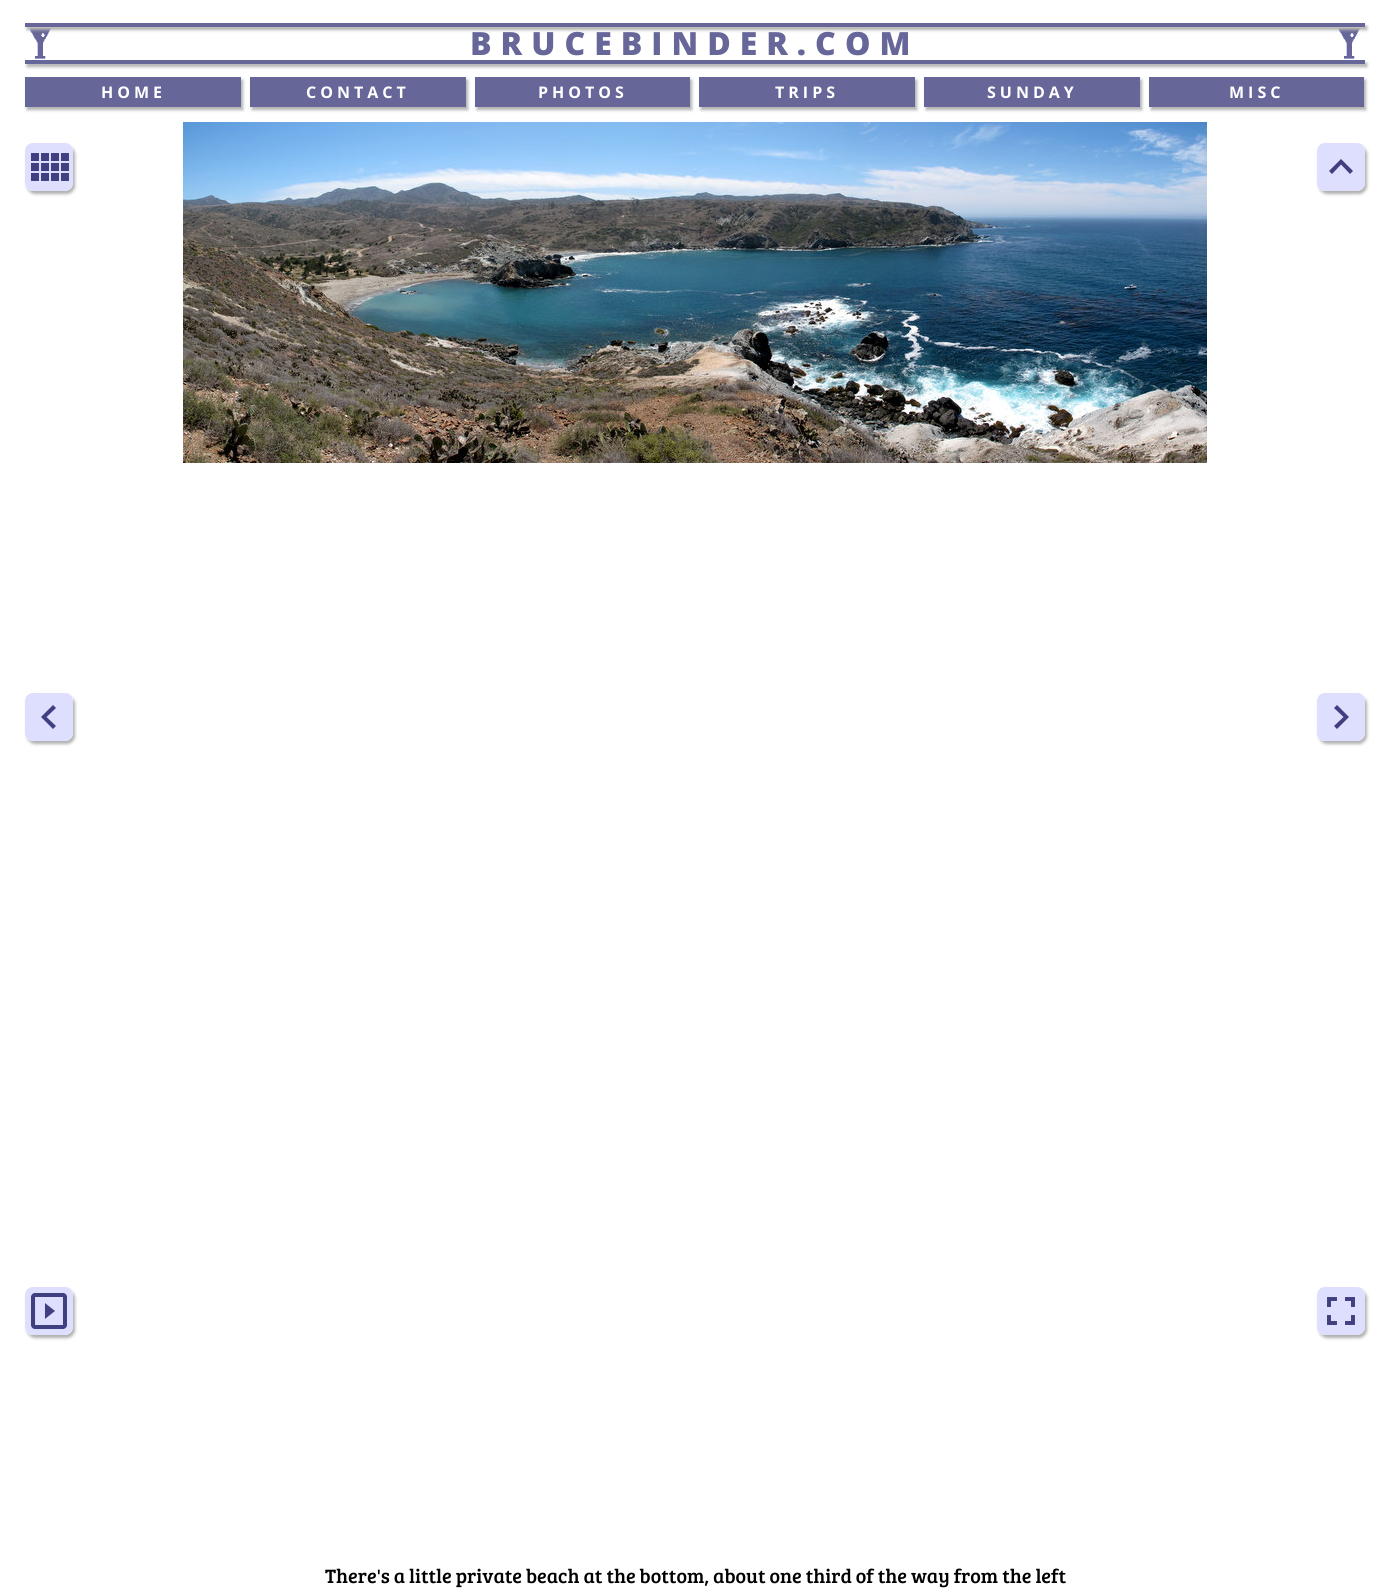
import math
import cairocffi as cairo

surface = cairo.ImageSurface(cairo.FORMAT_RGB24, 1390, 1589)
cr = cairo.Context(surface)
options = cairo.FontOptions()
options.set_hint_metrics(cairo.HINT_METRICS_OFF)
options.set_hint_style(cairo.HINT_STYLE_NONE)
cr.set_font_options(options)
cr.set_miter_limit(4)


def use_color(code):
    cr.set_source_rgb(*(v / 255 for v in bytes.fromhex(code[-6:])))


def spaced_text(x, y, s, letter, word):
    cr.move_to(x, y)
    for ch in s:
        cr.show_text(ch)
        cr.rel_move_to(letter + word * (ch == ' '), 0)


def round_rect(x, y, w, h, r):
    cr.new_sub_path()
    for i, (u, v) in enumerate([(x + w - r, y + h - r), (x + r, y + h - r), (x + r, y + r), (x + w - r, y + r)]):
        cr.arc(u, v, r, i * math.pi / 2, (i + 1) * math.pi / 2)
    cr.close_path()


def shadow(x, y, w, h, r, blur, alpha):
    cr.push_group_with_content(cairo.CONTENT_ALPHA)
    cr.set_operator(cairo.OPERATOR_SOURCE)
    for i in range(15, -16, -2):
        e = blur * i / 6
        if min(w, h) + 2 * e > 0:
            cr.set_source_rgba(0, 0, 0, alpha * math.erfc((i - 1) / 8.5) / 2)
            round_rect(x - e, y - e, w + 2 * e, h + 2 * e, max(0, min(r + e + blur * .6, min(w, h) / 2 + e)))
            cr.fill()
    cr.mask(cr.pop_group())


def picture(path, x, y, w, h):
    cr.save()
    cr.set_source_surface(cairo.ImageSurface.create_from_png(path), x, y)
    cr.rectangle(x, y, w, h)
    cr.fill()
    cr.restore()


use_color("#ffffff")
cr.paint()
picture("img1.png", 29, 28, 22, 31)
picture("img1.png", 1338, 28, 22, 31)
use_color("#b0b0b0")
shadow(27, 26, 1340, 4, 0, 1.5, 1)
use_color("#666699")
cr.rectangle(25, 23, 1340, 4)
cr.fill()
cr.select_font_face("Open Sans ExtraBold")
cr.set_font_size(32)
spaced_text(470, 55, "BRUCEBINDER.COM", 9, 0)
use_color("#b0b0b0")
shadow(27, 63, 1340, 4, 0, 1.5, 1)
use_color("#666699")
cr.rectangle(25, 60, 1340, 4)
cr.fill()
use_color("#b0b0b0")
shadow(27, 80, 216, 30, 0, 1.5, 1)
use_color("#666699")
cr.rectangle(25, 77, 216, 30)
cr.fill()
cr.select_font_face("Open Sans", cairo.FONT_SLANT_NORMAL, cairo.FONT_WEIGHT_BOLD)
cr.set_font_size(16)
use_color("#ffffff")
spaced_text(101, 98, "HOME", 4, 0)
use_color("#b0b0b0")
shadow(252, 80, 216, 30, 0, 1.5, 1)
use_color("#666699")
cr.rectangle(250, 77, 216, 30)
cr.fill()
use_color("#ffffff")
spaced_text(306, 98, "CONTACT", 4, 0)
use_color("#b0b0b0")
shadow(477, 80, 215, 30, 0, 1.5, 1)
use_color("#666699")
cr.rectangle(475, 77, 215, 30)
cr.fill()
use_color("#ffffff")
spaced_text(538, 98, "PHOTOS", 4, 0)
use_color("#b0b0b0")
shadow(701, 80, 216, 30, 0, 1.5, 1)
use_color("#666699")
cr.rectangle(699, 77, 216, 30)
cr.fill()
use_color("#ffffff")
spaced_text(775, 98, "TRIPS", 4, 0)
use_color("#b0b0b0")
shadow(926, 80, 216, 30, 0, 1.5, 1)
use_color("#666699")
cr.rectangle(924, 77, 216, 30)
cr.fill()
use_color("#ffffff")
spaced_text(987, 98, "SUNDAY", 4, 0)
use_color("#b0b0b0")
shadow(1151, 80, 215, 30, 0, 1.5, 1)
use_color("#666699")
cr.rectangle(1149, 77, 215, 30)
cr.fill()
use_color("#ffffff")
spaced_text(1229, 98, "MISC", 4, 0)
cr.save()
cr.set_fill_rule(cairo.FILL_RULE_EVEN_ODD)
cr.new_path()
cr.move_to(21, 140)
cr.line_to(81, 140)
cr.line_to(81, 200)
cr.line_to(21, 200)
cr.close_path()
cr.move_to(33, 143)
cr.line_to(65, 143)
cr.curve_to(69.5, 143, 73, 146.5, 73, 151)
cr.line_to(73, 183)
cr.curve_to(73, 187.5, 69.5, 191, 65, 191)
cr.line_to(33, 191)
cr.curve_to(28.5, 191, 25, 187.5, 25, 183)
cr.line_to(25, 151)
cr.curve_to(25, 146.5, 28.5, 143, 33, 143)
cr.close_path()
cr.clip()
use_color("#b0b0b0")
shadow(27, 146, 48, 48, 8, 1.5, 1)
cr.restore()
cr.set_source_rgba(0.8, 0.8, 1, 0.65)
round_rect(25, 143, 48, 48, 8)
cr.fill()
picture("img2.png", 31, 153, 38, 28)
picture("img3.png", 183, 122, 1024, 341)
cr.save()
cr.set_fill_rule(cairo.FILL_RULE_EVEN_ODD)
cr.new_path()
cr.move_to(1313, 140)
cr.line_to(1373, 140)
cr.line_to(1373, 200)
cr.line_to(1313, 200)
cr.close_path()
cr.move_to(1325, 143)
cr.line_to(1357, 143)
cr.curve_to(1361.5, 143, 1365, 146.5, 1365, 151)
cr.line_to(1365, 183)
cr.curve_to(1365, 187.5, 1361.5, 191, 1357, 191)
cr.line_to(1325, 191)
cr.curve_to(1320.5, 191, 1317, 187.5, 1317, 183)
cr.line_to(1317, 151)
cr.curve_to(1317, 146.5, 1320.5, 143, 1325, 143)
cr.close_path()
cr.clip()
use_color("#b0b0b0")
shadow(1319, 146, 48, 48, 8, 1.5, 1)
cr.restore()
round_rect(1317, 143, 48, 48, 8)
cr.fill()
use_color("#404080")
cr.new_path()
cr.move_to(1341, 159)
cr.line_to(1353, 171)
cr.line_to(1350, 174)
cr.line_to(1341, 164.5)
cr.line_to(1332, 174)
cr.line_to(1329, 171)
cr.close_path()
cr.fill()
cr.save()
cr.set_fill_rule(cairo.FILL_RULE_EVEN_ODD)
cr.new_path()
cr.move_to(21, 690)
cr.line_to(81, 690)
cr.line_to(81, 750)
cr.line_to(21, 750)
cr.close_path()
cr.move_to(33, 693)
cr.line_to(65, 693)
cr.curve_to(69.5, 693, 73, 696.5, 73, 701)
cr.line_to(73, 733)
cr.curve_to(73, 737.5, 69.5, 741, 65, 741)
cr.line_to(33, 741)
cr.curve_to(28.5, 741, 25, 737.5, 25, 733)
cr.line_to(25, 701)
cr.curve_to(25, 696.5, 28.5, 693, 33, 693)
cr.close_path()
cr.clip()
use_color("#b0b0b0")
shadow(27, 696, 48, 48, 8, 1.5, 1)
cr.restore()
cr.set_source_rgba(0.8, 0.8, 1, 0.65)
round_rect(25, 693, 48, 48, 8)
cr.fill()
use_color("#404080")
cr.new_path()
cr.move_to(56, 708)
cr.line_to(46.5, 717)
cr.line_to(56, 726)
cr.line_to(53, 729)
cr.line_to(41, 717)
cr.line_to(53, 705)
cr.close_path()
cr.fill()
cr.save()
cr.set_fill_rule(cairo.FILL_RULE_EVEN_ODD)
cr.new_path()
cr.move_to(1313, 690)
cr.line_to(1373, 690)
cr.line_to(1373, 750)
cr.line_to(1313, 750)
cr.close_path()
cr.move_to(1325, 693)
cr.line_to(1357, 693)
cr.curve_to(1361.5, 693, 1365, 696.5, 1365, 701)
cr.line_to(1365, 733)
cr.curve_to(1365, 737.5, 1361.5, 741, 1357, 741)
cr.line_to(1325, 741)
cr.curve_to(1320.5, 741, 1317, 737.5, 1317, 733)
cr.line_to(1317, 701)
cr.curve_to(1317, 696.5, 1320.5, 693, 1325, 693)
cr.close_path()
cr.clip()
use_color("#b0b0b0")
shadow(1319, 696, 48, 48, 8, 1.5, 1)
cr.restore()
cr.set_source_rgba(0.8, 0.8, 1, 0.65)
round_rect(1317, 693, 48, 48, 8)
cr.fill()
use_color("#404080")
cr.new_path()
cr.move_to(1337, 705)
cr.line_to(1349, 717)
cr.line_to(1337, 729)
cr.line_to(1334, 726)
cr.line_to(1343.5, 717)
cr.line_to(1334, 708)
cr.close_path()
cr.fill()
cr.save()
cr.set_fill_rule(cairo.FILL_RULE_EVEN_ODD)
cr.new_path()
cr.move_to(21, 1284)
cr.line_to(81, 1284)
cr.line_to(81, 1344)
cr.line_to(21, 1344)
cr.close_path()
cr.move_to(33, 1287)
cr.line_to(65, 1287)
cr.curve_to(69.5, 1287, 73, 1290.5, 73, 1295)
cr.line_to(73, 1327)
cr.curve_to(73, 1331.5, 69.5, 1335, 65, 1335)
cr.line_to(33, 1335)
cr.curve_to(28.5, 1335, 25, 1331.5, 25, 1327)
cr.line_to(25, 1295)
cr.curve_to(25, 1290.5, 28.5, 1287, 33, 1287)
cr.close_path()
cr.clip()
use_color("#b0b0b0")
shadow(27, 1290, 48, 48, 8, 1.5, 1)
cr.restore()
cr.set_source_rgba(0.8, 0.8, 1, 0.65)
round_rect(25, 1287, 48, 48, 8)
cr.fill()
picture("img4.png", 31, 1293, 36, 36)
cr.save()
cr.set_fill_rule(cairo.FILL_RULE_EVEN_ODD)
cr.new_path()
cr.move_to(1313, 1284)
cr.line_to(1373, 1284)
cr.line_to(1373, 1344)
cr.line_to(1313, 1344)
cr.close_path()
cr.move_to(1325, 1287)
cr.line_to(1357, 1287)
cr.curve_to(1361.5, 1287, 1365, 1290.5, 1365, 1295)
cr.line_to(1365, 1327)
cr.curve_to(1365, 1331.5, 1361.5, 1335, 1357, 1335)
cr.line_to(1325, 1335)
cr.curve_to(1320.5, 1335, 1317, 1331.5, 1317, 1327)
cr.line_to(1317, 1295)
cr.curve_to(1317, 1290.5, 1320.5, 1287, 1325, 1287)
cr.close_path()
cr.clip()
use_color("#b0b0b0")
shadow(1319, 1290, 48, 48, 8, 1.5, 1)
cr.restore()
round_rect(1317, 1287, 48, 48, 8)
cr.fill()
picture("img5.png", 1327, 1297, 28, 28)
cr.select_font_face("Bree Serif")
cr.set_font_size(20)
use_color("#000000")
cr.move_to(325, 1583)
cr.show_text("There's a little private beach at the bottom, about one third of the way from the left")
surface.write_to_png("result.png")
